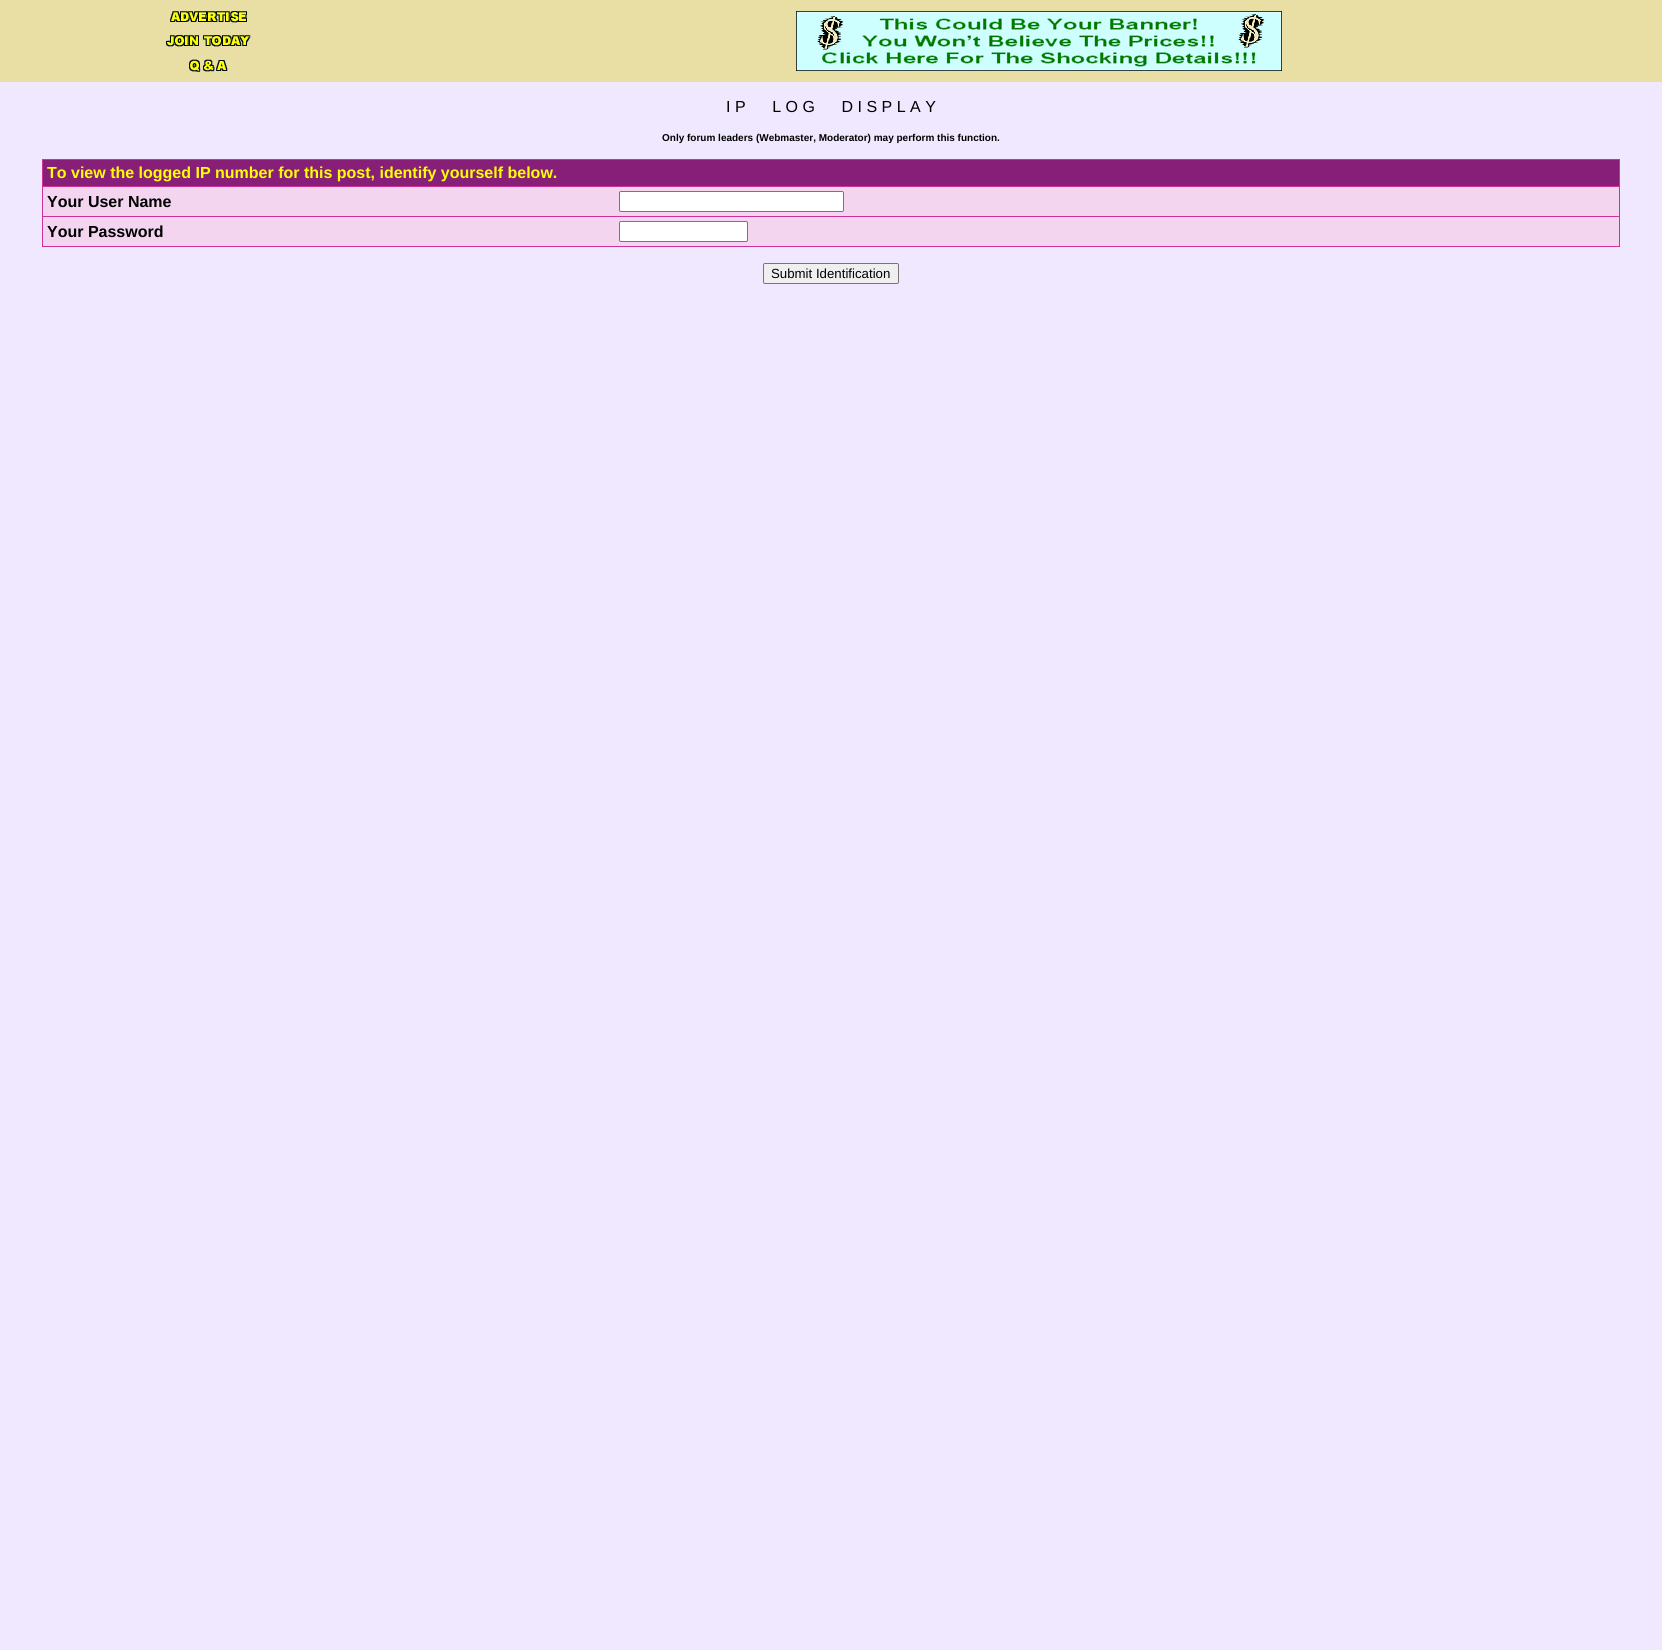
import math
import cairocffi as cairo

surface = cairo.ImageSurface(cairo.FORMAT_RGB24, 1662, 1650)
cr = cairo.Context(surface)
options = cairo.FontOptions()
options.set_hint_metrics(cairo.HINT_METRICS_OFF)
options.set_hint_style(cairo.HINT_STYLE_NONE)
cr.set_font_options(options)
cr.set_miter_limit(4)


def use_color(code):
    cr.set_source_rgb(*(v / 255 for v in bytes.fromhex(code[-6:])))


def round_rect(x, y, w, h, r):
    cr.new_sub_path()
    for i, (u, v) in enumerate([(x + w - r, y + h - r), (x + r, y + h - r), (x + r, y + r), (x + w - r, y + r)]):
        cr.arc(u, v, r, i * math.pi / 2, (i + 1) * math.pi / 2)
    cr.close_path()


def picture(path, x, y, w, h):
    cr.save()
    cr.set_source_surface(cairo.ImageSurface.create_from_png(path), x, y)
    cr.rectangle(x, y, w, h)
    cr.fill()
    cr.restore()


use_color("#efe8ff")
cr.paint()
use_color("#e9dea3")
cr.rectangle(0, 0, 1662, 82)
cr.fill()
picture("img1.png", 170, 11, 77, 12)
picture("img2.png", 166, 35, 85, 12)
picture("img3.png", 189, 59, 39, 13)
picture("img4.png", 796, 11, 486, 60)
cr.select_font_face("Liberation Sans")
cr.set_font_size(16)
use_color("#000000")
cr.move_to(726, 112)
cr.show_text("I P      L O G      D I S P L A Y")
cr.select_font_face("Liberation Sans", cairo.FONT_SLANT_NORMAL, cairo.FONT_WEIGHT_BOLD)
cr.set_font_size(10)
cr.move_to(662, 141)
cr.show_text("Only forum leaders (Webmaster, Moderator) may perform this function.")
use_color("#cc3299")
cr.rectangle(42, 159, 1578, 88)
cr.fill()
use_color("#871f78")
cr.rectangle(43, 160, 1576, 26)
cr.fill()
cr.set_font_size(16)
use_color("#ffff00")
cr.move_to(47, 178)
cr.show_text("To view the logged IP number for this post, identify yourself below.")
use_color("#f4d5f0")
cr.rectangle(43, 187, 1576, 29)
cr.fill()
use_color("#000000")
cr.move_to(47, 207)
cr.show_text("Your User Name")
use_color("#ffffff")
round_rect(619.5, 191.5, 224, 20, 1.5)
cr.fill_preserve()
use_color("#767676")
cr.set_line_width(1)
cr.stroke()
use_color("#f4d5f0")
cr.rectangle(43, 217, 1576, 29)
cr.fill()
use_color("#000000")
cr.move_to(47, 237)
cr.show_text("Your Password")
use_color("#ffffff")
round_rect(619.5, 221.5, 128, 20, 1.5)
cr.fill_preserve()
use_color("#767676")
cr.stroke()
use_color("#efefef")
round_rect(763.5, 263.5, 135, 20, 1.5)
cr.fill_preserve()
use_color("#767676")
cr.stroke()
cr.select_font_face("Liberation Sans")
cr.set_font_size(13.25)
use_color("#000000")
cr.move_to(771, 278)
cr.show_text("Submit Identification")
surface.write_to_png("result.png")
